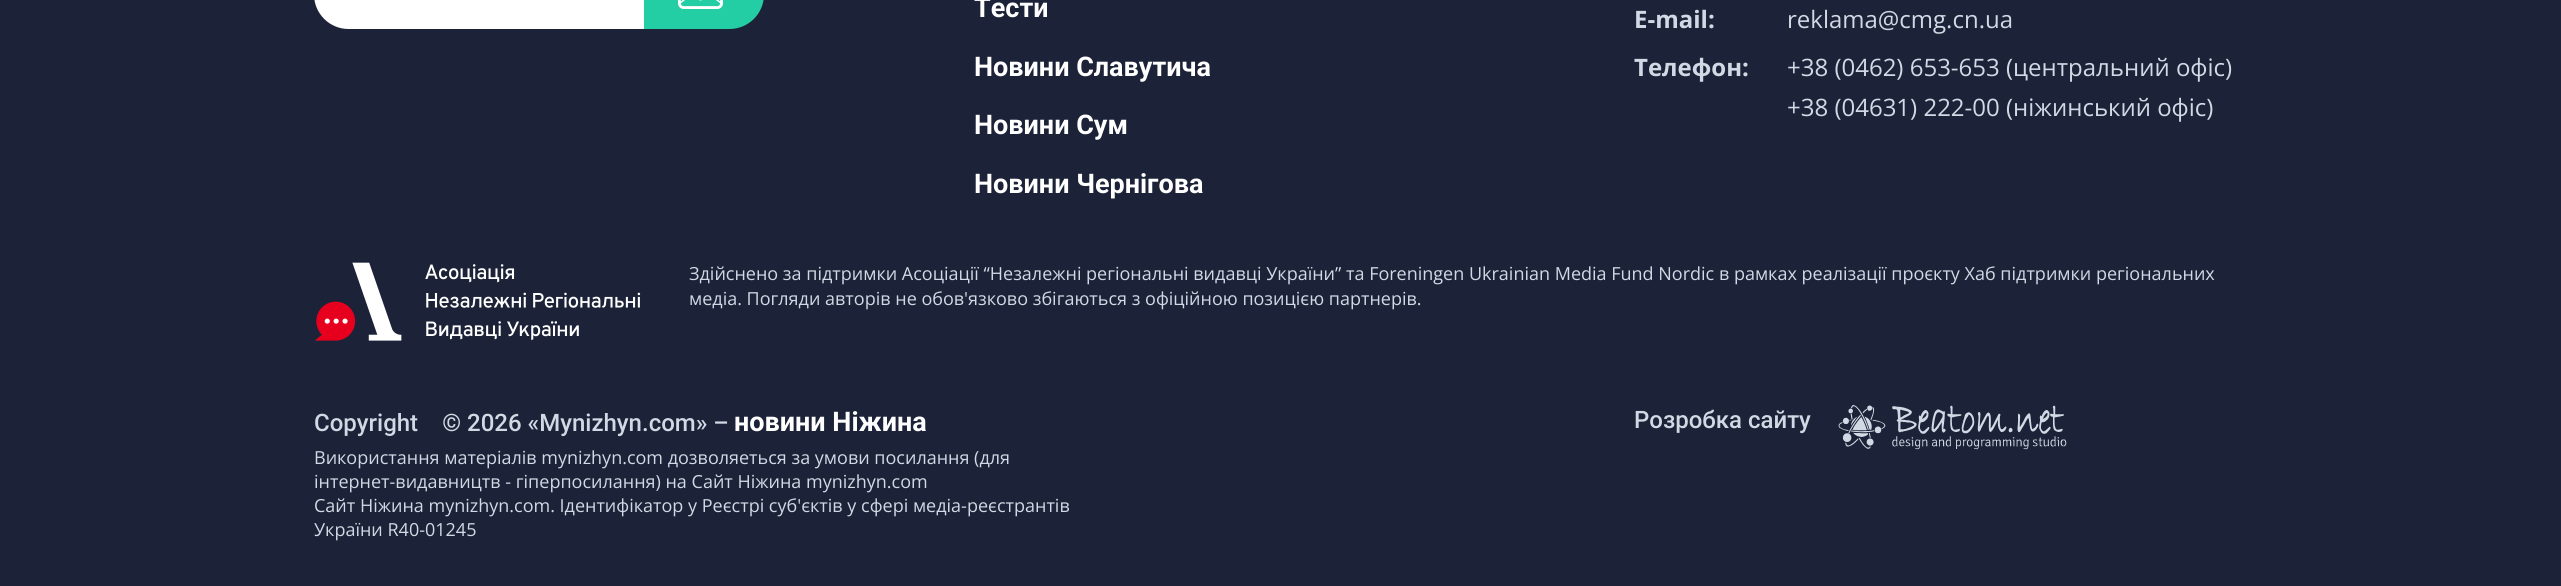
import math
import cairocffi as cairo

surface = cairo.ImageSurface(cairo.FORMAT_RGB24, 2561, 586)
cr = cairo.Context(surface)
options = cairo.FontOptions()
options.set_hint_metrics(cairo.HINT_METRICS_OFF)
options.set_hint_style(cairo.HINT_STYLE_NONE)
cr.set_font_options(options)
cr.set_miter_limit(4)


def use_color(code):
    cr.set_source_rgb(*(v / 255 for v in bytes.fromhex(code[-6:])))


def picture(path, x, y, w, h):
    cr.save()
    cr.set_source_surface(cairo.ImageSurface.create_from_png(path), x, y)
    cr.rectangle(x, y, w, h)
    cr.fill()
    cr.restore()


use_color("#1c2237")
cr.paint()
use_color("#ffffff")
cr.new_path()
cr.move_to(348.5, -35)
cr.line_to(644, -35)
cr.line_to(644, 29)
cr.line_to(348.5, 29)
cr.curve_to(329.5, 29, 314, 13.5, 314, -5.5)
cr.line_to(314, -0.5)
cr.curve_to(314, -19.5, 329.5, -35, 348.5, -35)
cr.close_path()
cr.fill()
use_color("#23cea5")
cr.new_path()
cr.move_to(644, -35)
cr.line_to(729.5, -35)
cr.curve_to(748.5, -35, 764, -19.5, 764, -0.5)
cr.line_to(764, -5.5)
cr.curve_to(764, 13.5, 748.5, 29, 729.5, 29)
cr.line_to(644, 29)
cr.close_path()
cr.fill()
picture("img1.png", 678, 0, 45, 9)
cr.select_font_face("Roboto", cairo.FONT_SLANT_NORMAL, cairo.FONT_WEIGHT_BOLD)
cr.set_font_size(27)
use_color("#ffffff")
cr.move_to(974, 17)
cr.show_text("Тести")
cr.move_to(974, 76)
cr.show_text("Новини Славутича")
cr.move_to(974, 134)
cr.show_text("Новини Сум")
cr.move_to(974, 193)
cr.show_text("Новини Чернігова")
cr.select_font_face("Open Sans", cairo.FONT_SLANT_NORMAL, cairo.FONT_WEIGHT_BOLD)
cr.set_font_size(24)
use_color("#d0d9e4")
cr.move_to(1634, 28)
cr.show_text("E-mail:")
cr.select_font_face("Open Sans")
cr.move_to(1787, 28)
cr.show_text("reklama@cmg.cn.ua")
cr.select_font_face("Open Sans", cairo.FONT_SLANT_NORMAL, cairo.FONT_WEIGHT_BOLD)
cr.move_to(1634, 76)
cr.show_text("Телефон:")
cr.select_font_face("Open Sans")
cr.move_to(1787, 76)
cr.show_text("+38 (0462) 653-653 (центральний офіс)")
cr.move_to(1787, 116)
cr.show_text("+38 (04631) 222-00 (ніжинський офіс)")
picture("img2.png", 315, 262, 326, 79)
cr.set_font_size(18)
cr.move_to(689, 280)
cr.show_text("Здійснено за підтримки Асоціації “Незалежні регіональні видавці України” та Foreningen Ukrainian Media Fund Nordic в рамках реалізації проєкту Хаб підтримки регіональних")
cr.move_to(689, 305)
cr.show_text("медіа. Погляди авторів не обов'язково збігаються з офіційною позицією партнерів.")
cr.select_font_face("Roboto Medium")
cr.set_font_size(24)
cr.move_to(314, 431)
cr.show_text("Copyright   © 2026 «Mynizhyn.com» –")
cr.select_font_face("Roboto", cairo.FONT_SLANT_NORMAL, cairo.FONT_WEIGHT_BOLD)
cr.set_font_size(27)
use_color("#ffffff")
cr.move_to(734, 431)
cr.show_text("новини Ніжина")
cr.select_font_face("Open Sans")
cr.set_font_size(18)
use_color("#d0d9e4")
cr.move_to(314, 464)
cr.show_text("Використання матеріалів mynizhyn.com дозволяеться за умови посилання (для")
cr.move_to(314, 488)
cr.show_text("інтернет-видавництв - гіперпосилання) на Сайт Ніжина mynizhyn.com")
cr.move_to(314, 512)
cr.show_text("Сайт Ніжина mynizhyn.com. Ідентифікатор у Реєстрі суб'єктів у сфері медіа-реєстрантів")
cr.move_to(314, 536)
cr.show_text("України R40-01245")
cr.select_font_face("Roboto Medium")
cr.set_font_size(24)
cr.move_to(1634, 428)
cr.show_text("Розробка сайту")
picture("img3.png", 1838, 405, 229, 45)
surface.write_to_png("result.png")
